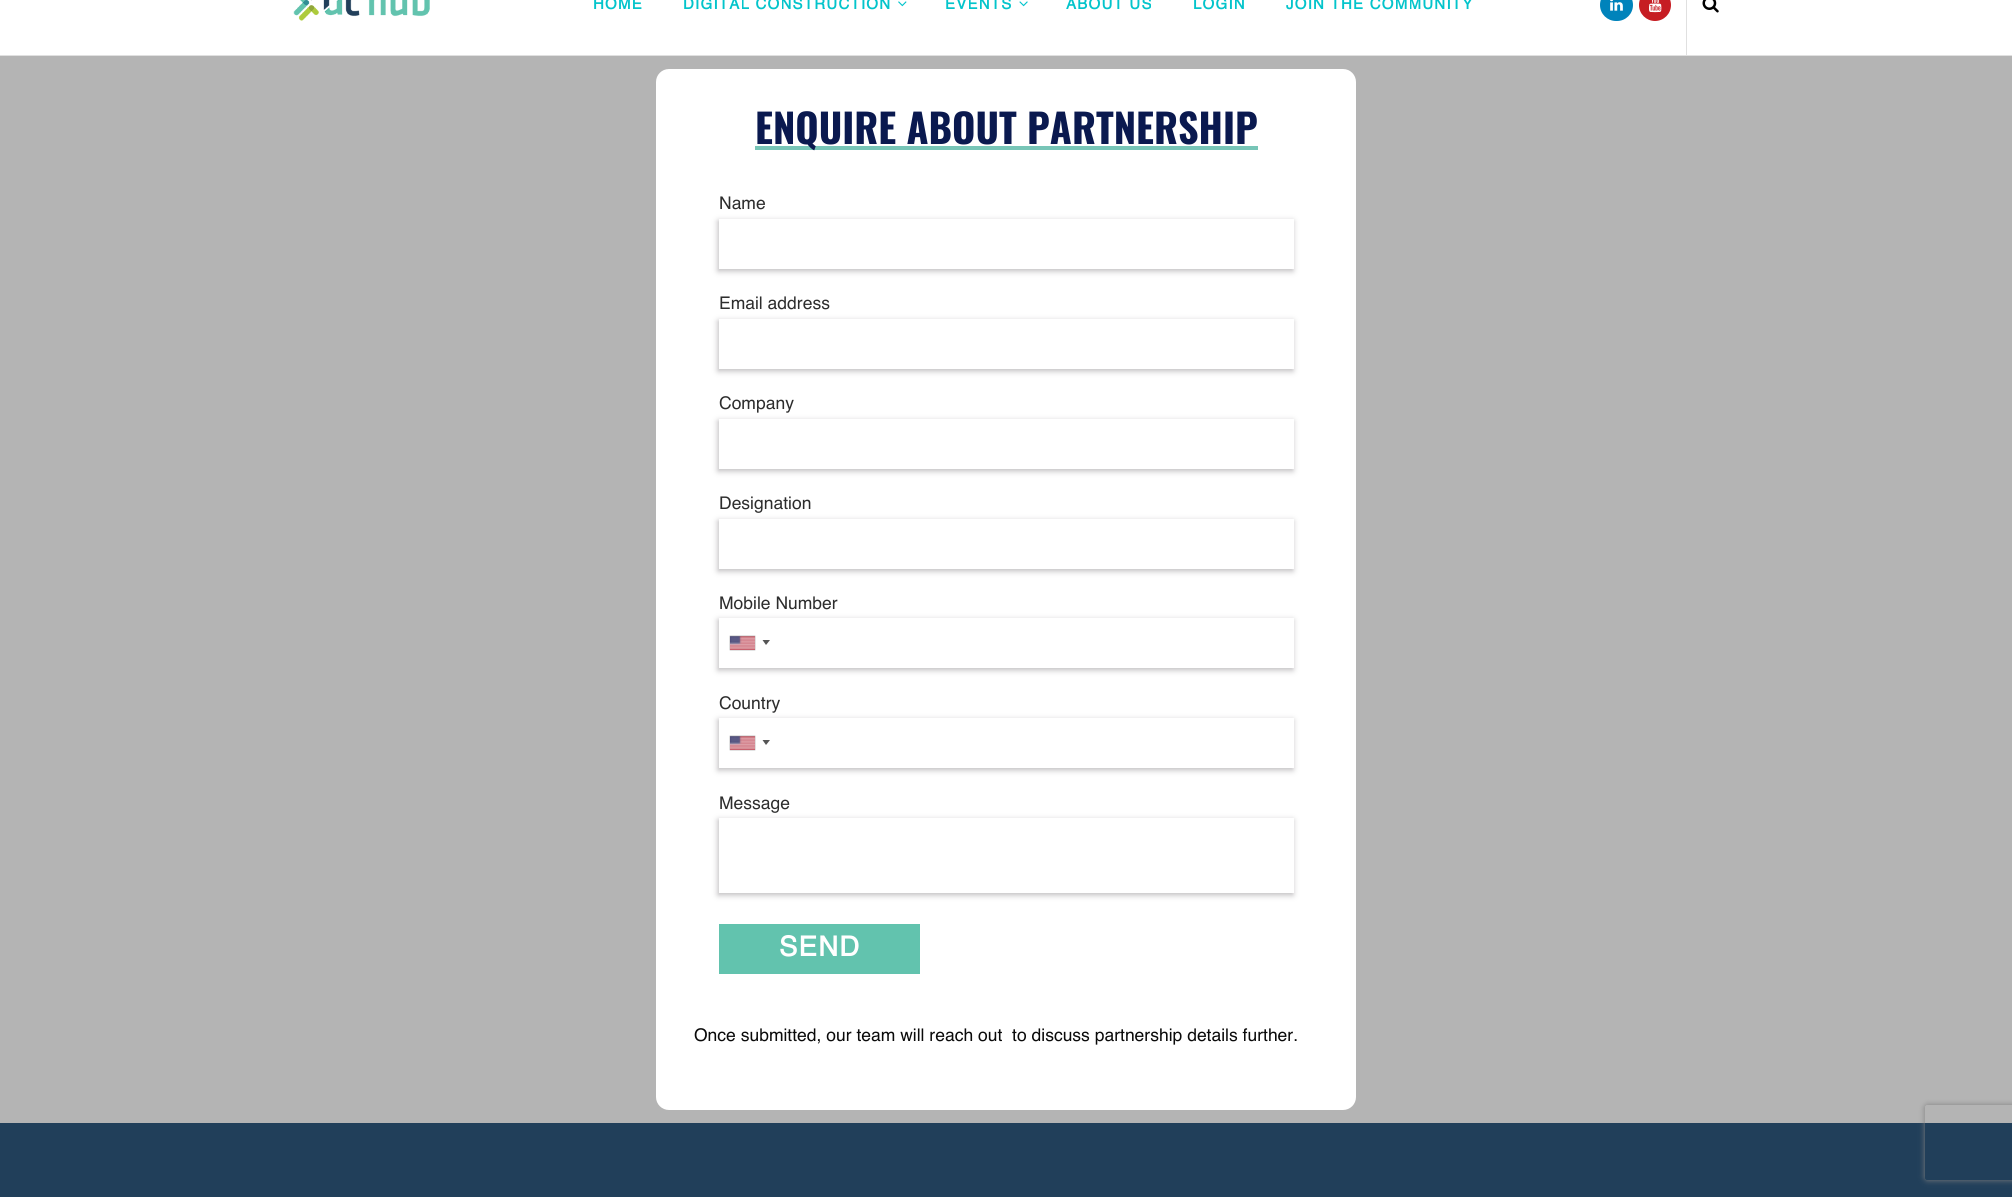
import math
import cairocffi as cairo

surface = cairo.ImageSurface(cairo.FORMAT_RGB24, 2012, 1197)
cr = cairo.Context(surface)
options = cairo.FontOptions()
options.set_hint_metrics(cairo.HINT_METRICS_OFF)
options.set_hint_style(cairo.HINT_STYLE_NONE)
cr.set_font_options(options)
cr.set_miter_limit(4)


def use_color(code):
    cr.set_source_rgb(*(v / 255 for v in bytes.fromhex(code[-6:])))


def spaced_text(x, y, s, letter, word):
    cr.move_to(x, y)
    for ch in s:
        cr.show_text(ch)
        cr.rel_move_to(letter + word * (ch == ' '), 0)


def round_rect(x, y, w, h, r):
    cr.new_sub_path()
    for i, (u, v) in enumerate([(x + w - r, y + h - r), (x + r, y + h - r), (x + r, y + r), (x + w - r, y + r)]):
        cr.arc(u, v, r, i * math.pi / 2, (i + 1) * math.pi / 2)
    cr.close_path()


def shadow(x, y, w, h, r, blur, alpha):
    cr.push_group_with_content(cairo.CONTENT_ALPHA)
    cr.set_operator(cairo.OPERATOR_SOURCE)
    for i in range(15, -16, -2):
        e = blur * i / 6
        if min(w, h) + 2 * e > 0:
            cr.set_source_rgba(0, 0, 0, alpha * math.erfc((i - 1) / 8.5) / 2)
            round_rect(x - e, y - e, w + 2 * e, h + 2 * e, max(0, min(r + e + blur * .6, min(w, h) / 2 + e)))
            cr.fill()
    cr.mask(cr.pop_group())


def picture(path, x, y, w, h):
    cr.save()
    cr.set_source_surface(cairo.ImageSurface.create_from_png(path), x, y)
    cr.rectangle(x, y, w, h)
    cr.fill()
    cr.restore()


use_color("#ffffff")
cr.paint()
use_color("#e0e0e0")
cr.rectangle(0, 55, 2012, 1)
cr.fill()
picture("img1.png", 293, 0, 137, 21)
cr.select_font_face("Helvetica", cairo.FONT_SLANT_NORMAL, cairo.FONT_WEIGHT_BOLD)
cr.set_font_size(15)
use_color("#03c4cb")
spaced_text(593, 9, "HOME", 1.25, 0)
spaced_text(683, 9, "DIGITAL CONSTRUCTION", 1.25, 0)
picture("img2.png", 898, 1, 9, 6)
spaced_text(945, 9, "EVENTS", 1.25, 0)
picture("img3.png", 1019, 1, 9, 6)
spaced_text(1066, 9, "ABOUT US", 1.25, 0)
spaced_text(1193, 9, "LOGIN", 1.25, 0)
spaced_text(1286, 9, "JOIN THE COMMUNITY", 1.25, 0)
use_color("#e0e0e0")
cr.rectangle(1686, 0, 1, 56)
cr.fill()
use_color("#0083bb")
round_rect(1600, -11, 33, 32, 16)
cr.fill()
picture("img4.png", 1610, 0, 13, 11)
use_color("#c61d23")
cr.arc(1655, 5, 16, 0, 2 * math.pi)
cr.fill()
picture("img5.png", 1649, 0, 13, 13)
picture("img6.png", 1702, 0, 17, 13)
use_color("#b4b4b4")
cr.rectangle(0, 56, 2012, 1067)
cr.fill()
use_color("#ffffff")
round_rect(656, 69, 700, 1041, 13)
cr.fill()
use_color("#77c5b7")
cr.rectangle(755, 146, 503, 4)
cr.fill()
cr.select_font_face("Oswald", cairo.FONT_SLANT_NORMAL, cairo.FONT_WEIGHT_BOLD)
cr.set_font_size(40)
use_color("#0a194f")
cr.move_to(755, 144)
cr.show_text("ENQUIRE ABOUT PARTNERSHIP")
cr.select_font_face("Helvetica")
cr.set_font_size(17.5)
use_color("#2d2d2d")
cr.move_to(719, 209)
cr.show_text("Name")
use_color("#bdbbbd")
shadow(718, 221, 575, 50, 0, 3, 1)
use_color("#ffffff")
cr.rectangle(719, 219, 575, 50)
cr.fill()
use_color("#2d2d2d")
cr.move_to(719, 309)
cr.show_text("Email address")
use_color("#bdbbbd")
shadow(718, 321, 575, 50, 0, 3, 1)
use_color("#ffffff")
cr.rectangle(719, 319, 575, 50)
cr.fill()
use_color("#2d2d2d")
cr.move_to(719, 409)
cr.show_text("Company")
use_color("#bdbbbd")
shadow(718, 421, 575, 50, 0, 3, 1)
use_color("#ffffff")
cr.rectangle(719, 419, 575, 50)
cr.fill()
use_color("#2d2d2d")
cr.move_to(719, 509)
cr.show_text("Designation")
use_color("#bdbbbd")
shadow(718, 521, 575, 50, 0, 3, 1)
use_color("#ffffff")
cr.rectangle(719, 519, 575, 50)
cr.fill()
use_color("#2d2d2d")
cr.move_to(719, 609)
cr.show_text("Mobile Number")
use_color("#bdbbbd")
shadow(718, 620, 575, 50, 0, 3, 1)
use_color("#ffffff")
cr.rectangle(719, 618, 575, 50)
cr.fill()
use_color("#888888")
shadow(730, 636, 25, 14, 0, 0.5, 1)
picture("img7.png", 730, 636, 25, 14)
use_color("#555555")
cr.new_path()
cr.move_to(762.5, 640)
cr.line_to(770, 640)
cr.line_to(766, 645)
cr.close_path()
cr.fill()
use_color("#2d2d2d")
cr.move_to(719, 709)
cr.show_text("Country")
use_color("#bdbbbd")
shadow(718, 720, 575, 50, 0, 3, 1)
use_color("#ffffff")
cr.rectangle(719, 718, 575, 50)
cr.fill()
use_color("#888888")
shadow(730, 736, 25, 14, 0, 0.5, 1)
picture("img8.png", 730, 736, 25, 14)
use_color("#555555")
cr.new_path()
cr.move_to(762.5, 740)
cr.line_to(770, 740)
cr.line_to(766, 745)
cr.close_path()
cr.fill()
use_color("#2d2d2d")
cr.move_to(719, 809)
cr.show_text("Message")
use_color("#bdbbbd")
shadow(718, 820, 575, 75, 0, 3, 1)
use_color("#ffffff")
cr.rectangle(719, 818, 575, 75)
cr.fill()
use_color("#62c3ae")
cr.rectangle(719, 924, 201, 50)
cr.fill()
cr.select_font_face("Helvetica", cairo.FONT_SLANT_NORMAL, cairo.FONT_WEIGHT_BOLD)
cr.set_font_size(27.5)
use_color("#ffffff")
spaced_text(779, 956, "SEND", 1.25, 0)
cr.select_font_face("Helvetica")
cr.set_font_size(17.5)
use_color("#0a0a0a")
cr.move_to(694, 1041)
cr.show_text("Once submitted, our team will reach out  to discuss partnership details further.")
use_color("#213f5a")
cr.rectangle(0, 1123, 2012, 74)
cr.fill()
cr.save()
cr.set_fill_rule(cairo.FILL_RULE_EVEN_ODD)
cr.new_path()
cr.move_to(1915, 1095)
cr.line_to(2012, 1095)
cr.line_to(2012, 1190)
cr.line_to(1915, 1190)
cr.close_path()
cr.move_to(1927.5, 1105)
cr.line_to(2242.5, 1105)
cr.curve_to(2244, 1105, 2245, 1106, 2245, 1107.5)
cr.line_to(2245, 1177.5)
cr.curve_to(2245, 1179, 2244, 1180, 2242.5, 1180)
cr.line_to(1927.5, 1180)
cr.curve_to(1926, 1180, 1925, 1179, 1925, 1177.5)
cr.line_to(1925, 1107.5)
cr.curve_to(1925, 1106, 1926, 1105, 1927.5, 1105)
cr.close_path()
cr.clip()
use_color("#808080")
shadow(1925, 1105, 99, 75, 2.5, 3, 1)
cr.restore()
surface.write_to_png("result.png")
